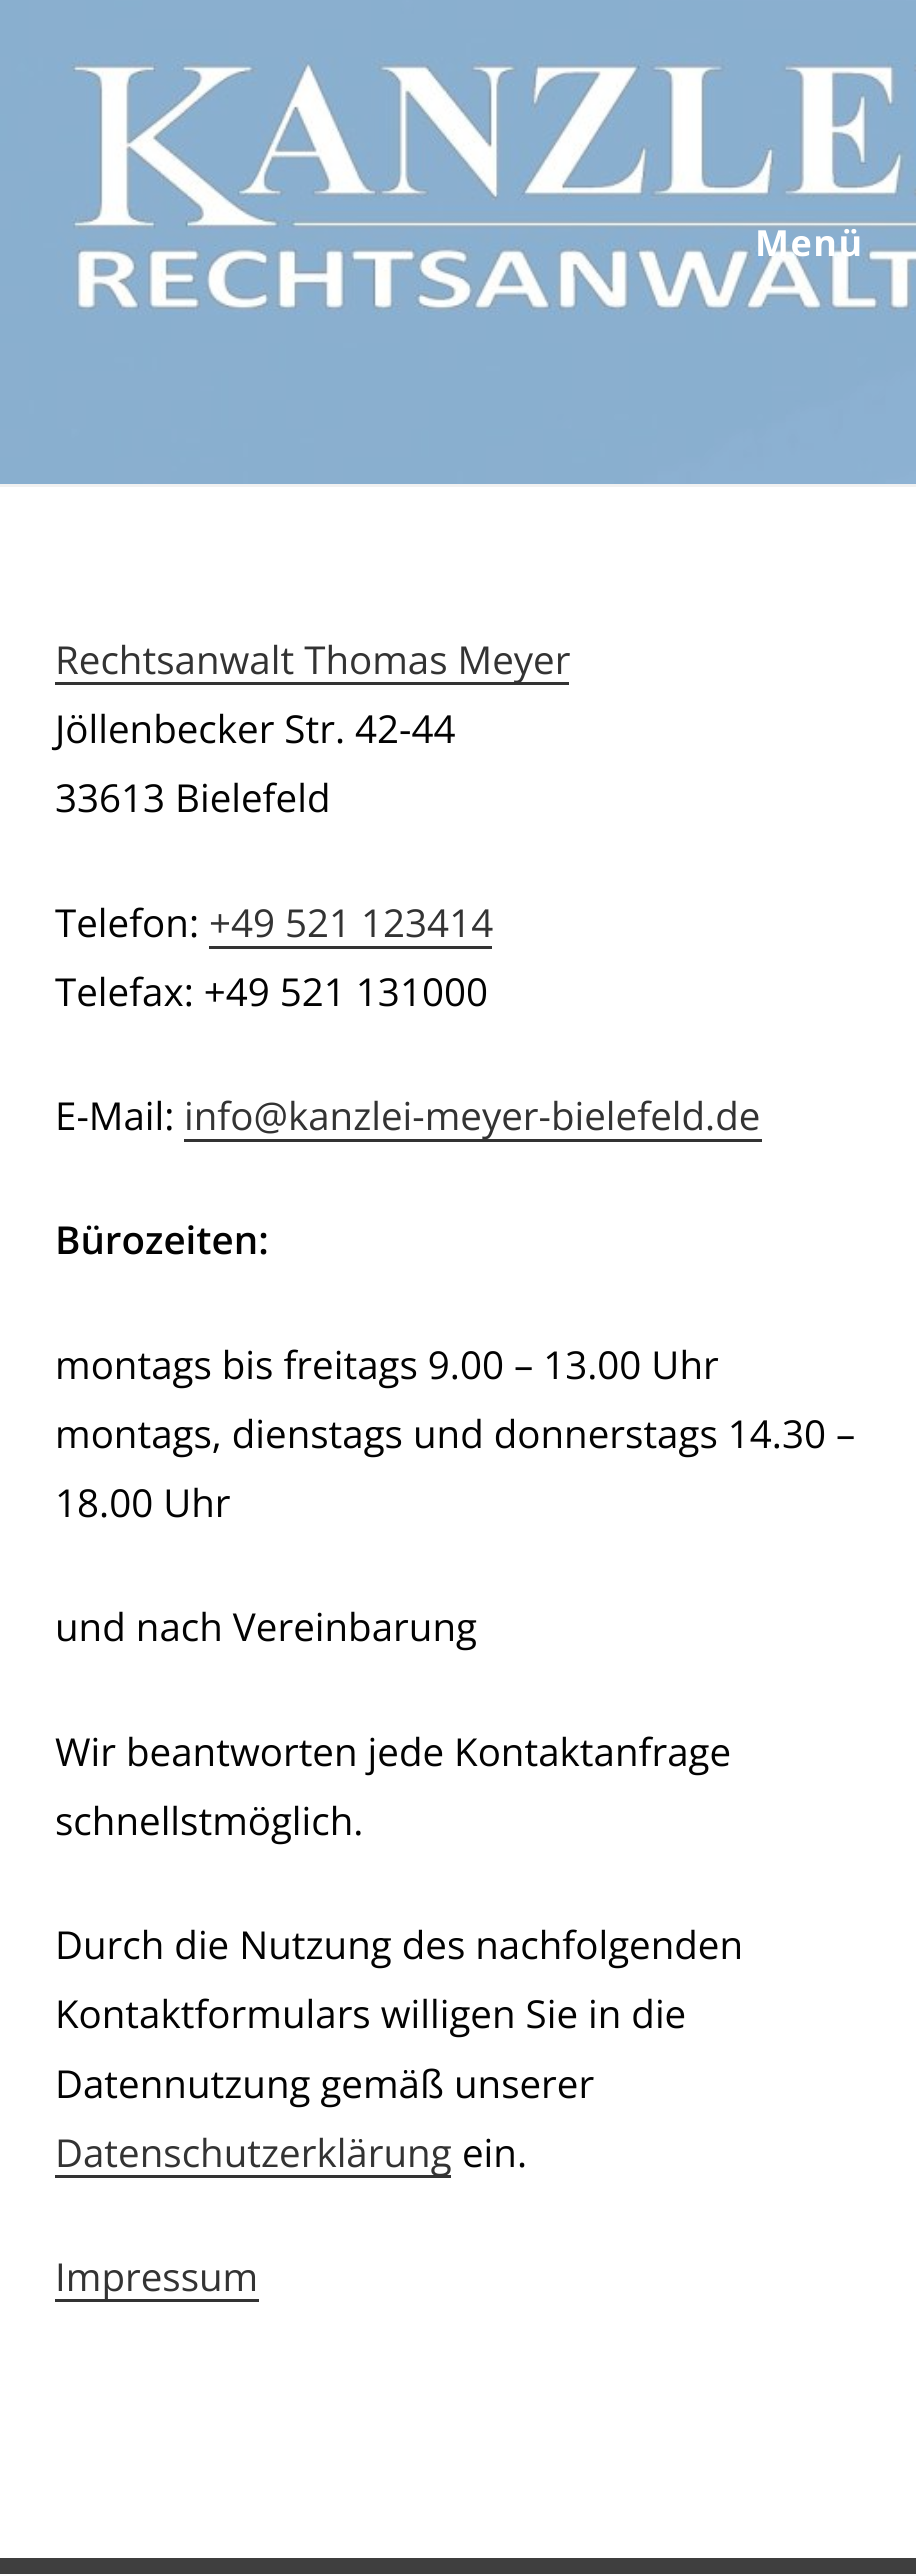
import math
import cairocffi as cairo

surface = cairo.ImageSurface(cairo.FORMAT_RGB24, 916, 2574)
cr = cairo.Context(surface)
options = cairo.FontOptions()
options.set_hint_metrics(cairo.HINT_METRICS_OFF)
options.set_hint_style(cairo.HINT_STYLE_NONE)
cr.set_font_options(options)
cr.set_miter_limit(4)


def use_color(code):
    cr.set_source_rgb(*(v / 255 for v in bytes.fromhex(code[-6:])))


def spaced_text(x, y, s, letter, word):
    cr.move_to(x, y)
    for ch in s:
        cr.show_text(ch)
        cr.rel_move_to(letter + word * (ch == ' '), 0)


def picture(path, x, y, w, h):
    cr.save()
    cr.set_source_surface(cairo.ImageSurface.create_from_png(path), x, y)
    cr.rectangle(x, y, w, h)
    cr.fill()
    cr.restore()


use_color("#ffffff")
cr.paint()
picture("img1.png", 0, 0, 916, 484)
use_color("#f1f1f1")
cr.rectangle(0, 484, 916, 3)
cr.fill()
cr.select_font_face("Open Sans", cairo.FONT_SLANT_NORMAL, cairo.FONT_WEIGHT_BOLD)
cr.set_font_size(36)
use_color("#ffffff")
spaced_text(755, 256, "Menü", 1.5, 0)
use_color("#333333")
cr.rectangle(55, 682, 514, 3)
cr.fill()
cr.select_font_face("Open Sans")
cr.set_font_size(38.5)
cr.move_to(55, 674)
cr.show_text("Rechtsanwalt Thomas Meyer")
use_color("#020202")
cr.move_to(55, 743)
cr.show_text("Jöllenbecker Str. 42-44")
cr.move_to(55, 812)
cr.show_text("33613 Bielefeld")
cr.move_to(55, 937)
cr.show_text("Telefon:")
use_color("#333333")
cr.move_to(209, 937)
cr.show_text("+49 521 123414")
cr.rectangle(209, 946, 283, 3)
cr.fill()
use_color("#020202")
cr.move_to(55, 1006)
cr.show_text("Telefax: +49 521 131000")
cr.move_to(55, 1130)
cr.show_text("E-Mail:")
use_color("#333333")
cr.rectangle(184, 1139, 578, 3)
cr.fill()
cr.move_to(184, 1130)
cr.show_text("info@kanzlei-meyer-bielefeld.de")
cr.select_font_face("Open Sans SemiBold")
use_color("#020202")
cr.move_to(55, 1254)
cr.show_text("Bürozeiten:")
cr.select_font_face("Open Sans")
cr.move_to(55, 1379)
cr.show_text("montags bis freitags 9.00 – 13.00 Uhr")
cr.move_to(55, 1448)
cr.show_text("montags, dienstags und donnerstags 14.30 –")
cr.move_to(55, 1517)
cr.show_text("18.00 Uhr")
cr.move_to(55, 1641)
cr.show_text("und nach Vereinbarung")
cr.move_to(55, 1766)
cr.show_text("Wir beantworten jede Kontaktanfrage")
cr.move_to(55, 1835)
cr.show_text("schnellstmöglich.")
cr.move_to(55, 1959)
cr.show_text("Durch die Nutzung des nachfolgenden")
cr.move_to(55, 2028)
cr.show_text("Kontaktformulars willigen Sie in die")
cr.move_to(55, 2098)
cr.show_text("Datennutzung gemäß unserer")
use_color("#333333")
cr.rectangle(55, 2175, 396, 3)
cr.fill()
cr.move_to(55, 2167)
cr.show_text("Datenschutzerklärung")
use_color("#020202")
cr.move_to(462, 2167)
cr.show_text("ein.")
use_color("#333333")
cr.rectangle(55, 2299, 204, 3)
cr.fill()
cr.move_to(55, 2291)
cr.show_text("Impressum")
use_color("#3f3f3f")
cr.rectangle(0, 2558, 916, 16)
cr.fill()
surface.write_to_png("result.png")
